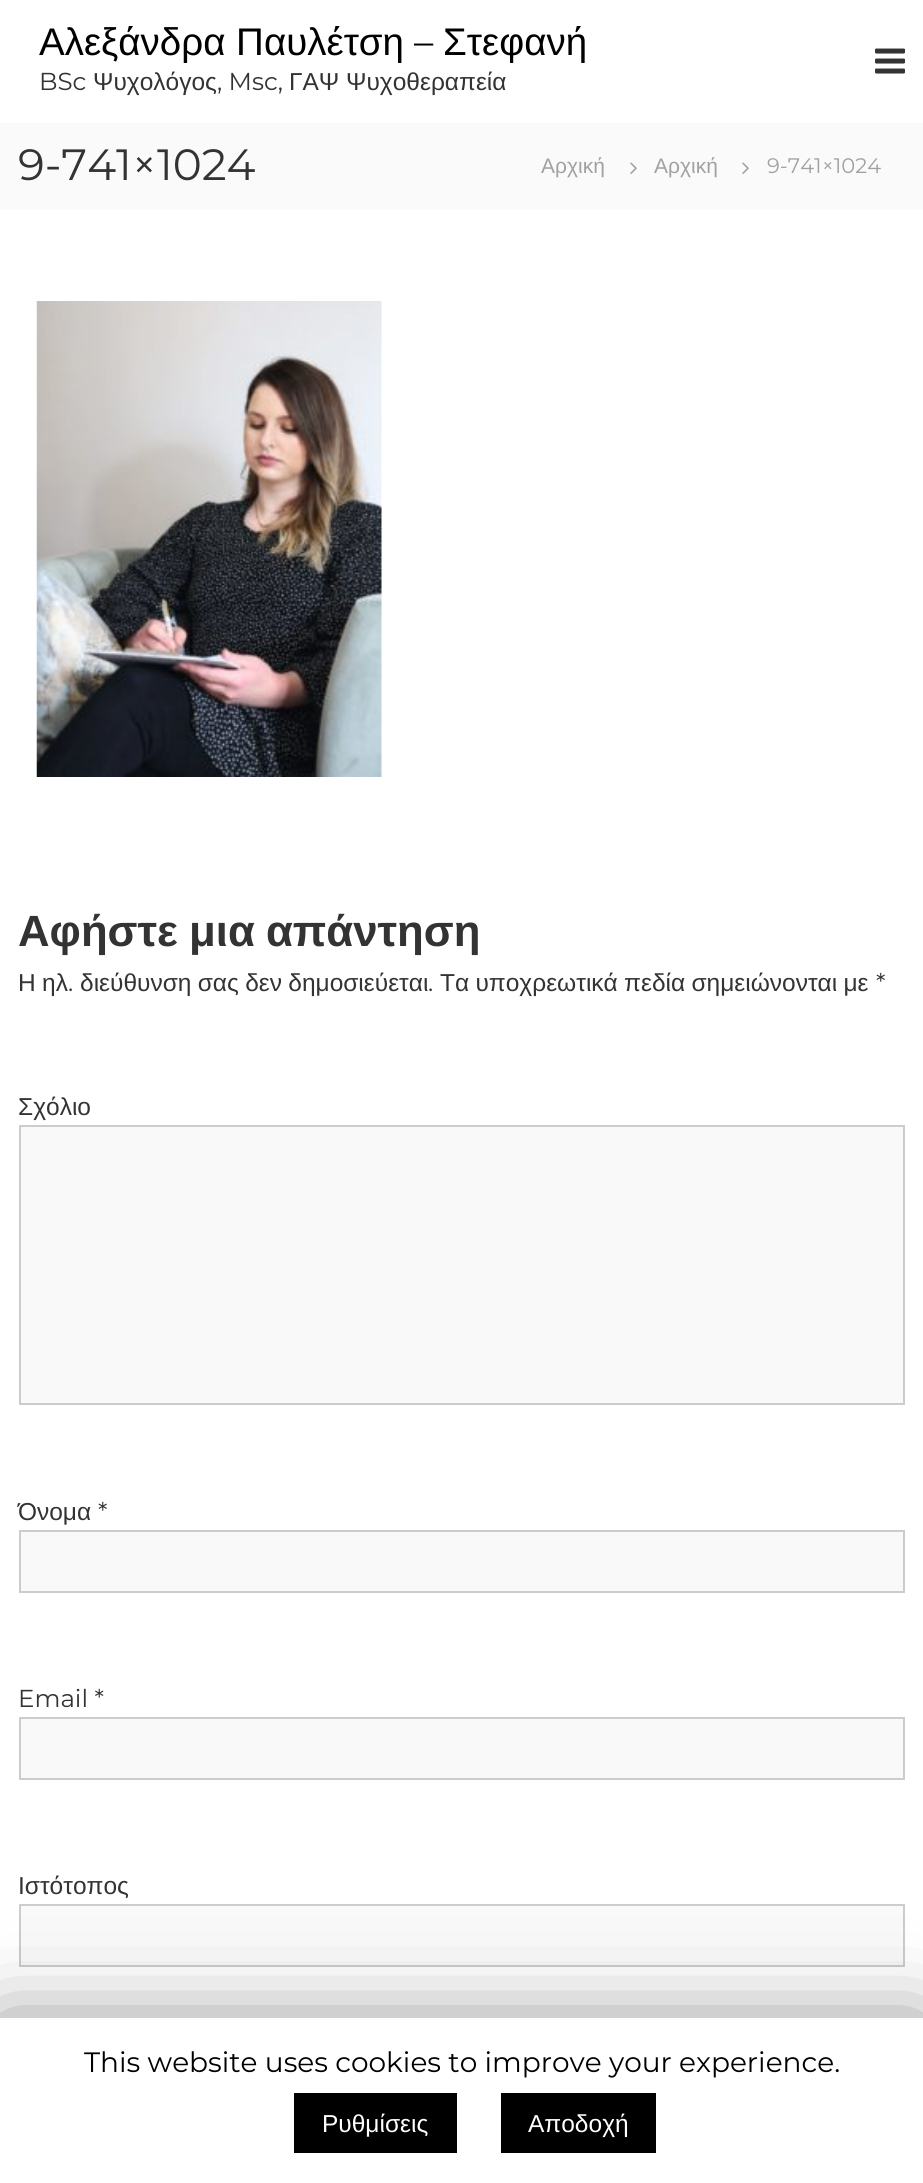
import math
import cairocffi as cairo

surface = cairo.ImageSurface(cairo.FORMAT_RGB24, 923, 2183)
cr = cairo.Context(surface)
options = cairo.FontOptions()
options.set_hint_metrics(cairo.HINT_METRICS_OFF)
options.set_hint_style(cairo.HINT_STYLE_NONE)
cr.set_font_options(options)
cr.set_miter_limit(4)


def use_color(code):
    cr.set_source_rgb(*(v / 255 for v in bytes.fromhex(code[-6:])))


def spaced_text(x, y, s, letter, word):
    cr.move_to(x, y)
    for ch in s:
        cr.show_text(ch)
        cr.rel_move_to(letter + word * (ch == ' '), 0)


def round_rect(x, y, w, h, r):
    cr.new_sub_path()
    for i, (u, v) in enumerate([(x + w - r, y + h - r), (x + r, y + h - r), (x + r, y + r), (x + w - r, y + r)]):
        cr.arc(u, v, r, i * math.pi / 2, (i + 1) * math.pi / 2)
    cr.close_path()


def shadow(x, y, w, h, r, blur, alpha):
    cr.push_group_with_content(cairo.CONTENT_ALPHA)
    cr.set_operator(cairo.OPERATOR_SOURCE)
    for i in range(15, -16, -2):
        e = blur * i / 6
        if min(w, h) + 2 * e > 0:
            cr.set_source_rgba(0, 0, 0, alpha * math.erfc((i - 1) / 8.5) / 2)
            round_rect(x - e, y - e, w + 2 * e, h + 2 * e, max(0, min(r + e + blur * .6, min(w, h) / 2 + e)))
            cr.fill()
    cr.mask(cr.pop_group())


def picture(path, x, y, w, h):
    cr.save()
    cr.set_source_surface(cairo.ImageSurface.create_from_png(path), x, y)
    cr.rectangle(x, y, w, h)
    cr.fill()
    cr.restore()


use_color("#ffffff")
cr.paint()
cr.select_font_face("Liberation Sans")
cr.set_font_size(38.5)
use_color("#000000")
cr.move_to(39, 55)
cr.show_text("Αλεξάνδρα Παυλέτση")
cr.select_font_face("Montserrat Thin")
cr.move_to(414, 55)
cr.show_text("–")
cr.select_font_face("Liberation Sans")
cr.move_to(443, 55)
cr.show_text("Στεφανή")
cr.select_font_face("Montserrat Thin")
cr.set_font_size(24.5)
use_color("#333333")
cr.move_to(39, 90)
cr.show_text("BSc")
cr.select_font_face("Liberation Sans")
cr.move_to(93, 90)
cr.show_text("Ψυχολόγος")
cr.select_font_face("Montserrat Thin")
cr.move_to(217, 90)
cr.show_text(", Msc,")
cr.select_font_face("Liberation Sans")
cr.move_to(289, 90)
cr.show_text("ΓΑΨ")
cr.move_to(346, 90)
cr.show_text("Ψυχοθεραπεία")
picture("img1.png", 875, 48, 30, 26)
use_color("#fafafa")
cr.rectangle(0, 123, 923, 87)
cr.fill()
cr.select_font_face("Montserrat Thin")
cr.set_font_size(43.75)
use_color("#333333")
cr.move_to(18, 180)
cr.show_text("9-741×1024")
cr.select_font_face("Liberation Sans")
cr.set_font_size(21)
use_color("#a1a1a1")
cr.move_to(541, 173)
cr.show_text("Αρχική")
picture("img2.png", 630, 162, 7, 12)
cr.move_to(654, 173)
cr.show_text("Αρχική")
picture("img2.png", 742, 162, 7, 12)
cr.select_font_face("Montserrat Thin")
cr.move_to(767, 173)
cr.show_text("9-741×1024")
picture("img3.png", 36, 301, 346, 476)
cr.select_font_face("Liberation Sans", cairo.FONT_SLANT_NORMAL, cairo.FONT_WEIGHT_BOLD)
cr.set_font_size(43.75)
use_color("#333333")
spaced_text(18, 946, "Αφήστε μια απάντηση", 0, -1)
cr.select_font_face("Liberation Sans")
cr.set_font_size(24.5)
spaced_text(18, 991, "Η ηλ", 0, -0.5)
cr.select_font_face("Montserrat Thin")
cr.move_to(68, 991)
cr.show_text(".")
cr.select_font_face("Liberation Sans")
spaced_text(80, 991, "διεύθυνση σας δεν δημοσιεύεται", 0, -0.5)
cr.select_font_face("Montserrat Thin")
cr.move_to(428, 991)
cr.show_text(".")
cr.select_font_face("Liberation Sans")
spaced_text(440, 991, "Τα υποχρεωτικά πεδία σημειώνονται με", 0, -0.5)
cr.select_font_face("Montserrat Thin")
cr.move_to(876, 991)
cr.show_text("*")
cr.select_font_face("Liberation Sans")
cr.move_to(18, 1115)
cr.show_text("Σχόλιο")
use_color("#f9f9f9")
cr.rectangle(20, 1126, 884, 278)
cr.fill_preserve()
use_color("#cccccc")
cr.stroke()
use_color("#333333")
cr.move_to(18, 1520)
cr.show_text("Όνομα")
cr.select_font_face("Montserrat Thin")
cr.move_to(98, 1520)
cr.show_text("*")
use_color("#f9f9f9")
cr.rectangle(20, 1531, 884, 61)
cr.fill_preserve()
use_color("#cccccc")
cr.stroke()
use_color("#333333")
cr.move_to(18, 1707)
cr.show_text("Email *")
use_color("#f9f9f9")
cr.rectangle(20, 1718, 884, 61)
cr.fill_preserve()
use_color("#cccccc")
cr.stroke()
cr.select_font_face("Liberation Sans")
use_color("#333333")
cr.move_to(18, 1894)
cr.show_text("Ιστότοπος")
use_color("#f9f9f9")
cr.rectangle(20, 1905, 884, 61)
cr.fill_preserve()
use_color("#cccccc")
cr.stroke()
use_color("#000000")
shadow(0, 2027, 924, 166, 0, 44, 0.5)
use_color("#ffffff")
cr.rectangle(0, 2018, 923, 165)
cr.fill()
cr.select_font_face("Montserrat Thin")
cr.set_font_size(28)
use_color("#000000")
cr.move_to(84, 2072)
cr.show_text("This website uses cookies to improve your experience.")
cr.rectangle(294, 2093, 163, 60)
cr.fill()
cr.select_font_face("Liberation Sans")
cr.set_font_size(24.5)
use_color("#ffffff")
cr.move_to(322, 2132)
cr.show_text("Ρυθμίσεις")
use_color("#000000")
cr.rectangle(501, 2093, 155, 60)
cr.fill()
use_color("#ffffff")
cr.move_to(528, 2132)
cr.show_text("Αποδοχή")
surface.write_to_png("result.png")
